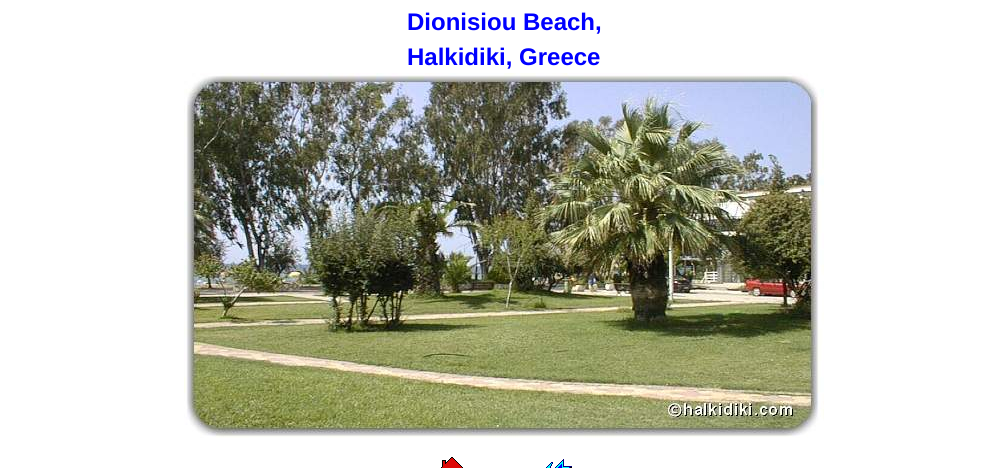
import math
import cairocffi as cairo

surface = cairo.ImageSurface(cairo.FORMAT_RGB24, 1008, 468)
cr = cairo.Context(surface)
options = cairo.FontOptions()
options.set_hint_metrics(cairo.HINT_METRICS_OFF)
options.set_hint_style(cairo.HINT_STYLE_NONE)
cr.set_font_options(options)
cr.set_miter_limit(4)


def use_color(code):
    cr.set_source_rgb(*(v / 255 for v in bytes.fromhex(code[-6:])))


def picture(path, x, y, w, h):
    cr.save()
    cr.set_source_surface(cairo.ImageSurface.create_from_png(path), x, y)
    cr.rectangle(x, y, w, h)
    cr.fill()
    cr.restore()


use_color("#ffffff")
cr.paint()
cr.select_font_face("Liberation Sans", cairo.FONT_SLANT_NORMAL, cairo.FONT_WEIGHT_BOLD)
cr.set_font_size(24)
use_color("#0000ff")
cr.move_to(407, 30)
cr.show_text("Dionisiou Beach,")
cr.move_to(407, 65)
cr.show_text("Halkidiki, Greece")
picture("img1.png", 184, 73, 640, 365)
picture("img2.png", 441, 457, 22, 11)
picture("img3.png", 546, 459, 26, 9)
surface.write_to_png("result.png")
